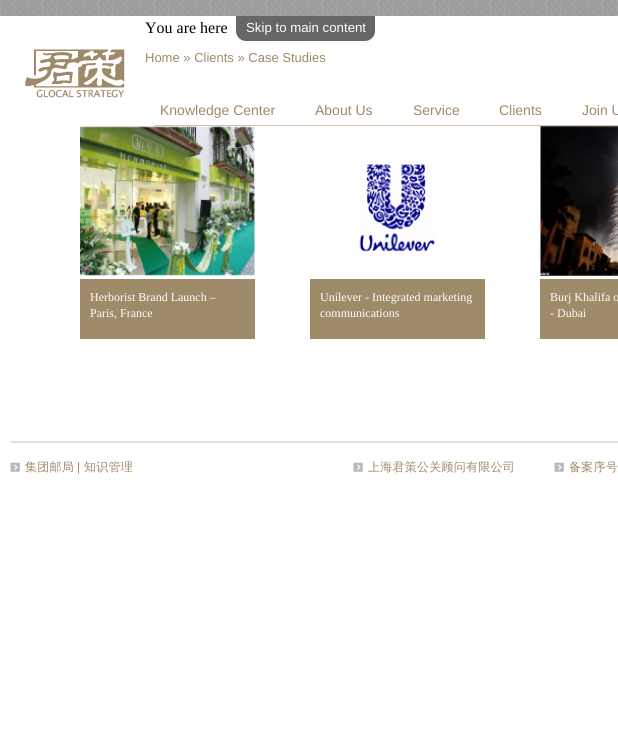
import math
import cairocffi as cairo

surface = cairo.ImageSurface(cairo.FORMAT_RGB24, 618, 750)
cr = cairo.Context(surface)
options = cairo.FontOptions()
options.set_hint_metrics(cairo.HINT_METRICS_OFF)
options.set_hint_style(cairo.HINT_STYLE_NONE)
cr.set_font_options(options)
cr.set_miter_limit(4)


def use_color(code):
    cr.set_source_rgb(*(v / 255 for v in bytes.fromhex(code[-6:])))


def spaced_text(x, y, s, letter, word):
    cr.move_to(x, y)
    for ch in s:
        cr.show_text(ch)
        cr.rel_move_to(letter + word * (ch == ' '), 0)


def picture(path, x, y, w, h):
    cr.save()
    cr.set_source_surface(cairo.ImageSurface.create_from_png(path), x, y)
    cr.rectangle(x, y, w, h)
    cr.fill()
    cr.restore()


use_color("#ffffff")
cr.paint()
picture("img1.png", 0, 0, 618, 16)
cr.select_font_face("Liberation Serif")
cr.set_font_size(16)
use_color("#000000")
cr.move_to(145, 33)
cr.show_text("You are here")
cr.select_font_face("Liberation Sans")
cr.set_font_size(13)
use_color("#9f8a69")
cr.move_to(145, 62)
cr.show_text("Home » Clients » Case Studies")
picture("img2.png", 80, 126, 175, 150)
cr.rectangle(80, 279, 175, 60)
cr.fill()
cr.select_font_face("Liberation Serif")
cr.set_font_size(12)
use_color("#ffffff")
cr.move_to(90, 301)
cr.show_text("Herborist Brand Launch –")
cr.move_to(90, 317)
cr.show_text("Paris, France")
picture("img3.png", 359, 164, 76, 88)
use_color("#9f8a69")
cr.rectangle(310, 279, 175, 60)
cr.fill()
use_color("#ffffff")
cr.move_to(320, 301)
cr.show_text("Unilever - Integrated marketing")
cr.move_to(320, 317)
cr.show_text("communications")
picture("img4.png", 540, 126, 78, 150)
use_color("#9f8a69")
cr.rectangle(540, 279, 78, 60)
cr.fill()
use_color("#ffffff")
cr.move_to(550, 301)
cr.show_text("Burj Khalifa o")
cr.move_to(550, 317)
cr.show_text("- Dubai")
picture("img5.png", 25, 49, 100, 49)
use_color("#d1c4aa")
cr.rectangle(155, 125, 463, 1)
cr.fill()
cr.select_font_face("Liberation Sans")
cr.set_font_size(14)
use_color("#9f8a69")
cr.move_to(160, 115)
cr.show_text("Knowledge Center")
cr.move_to(315, 115)
cr.show_text("About Us")
cr.move_to(413, 115)
cr.show_text("Service")
cr.move_to(499, 115)
cr.show_text("Clients")
cr.move_to(582, 115)
cr.show_text("Join U")
use_color("#e8e2d4")
cr.rectangle(10, 441, 608, 2)
cr.fill()
picture("img6.png", 10, 462, 10, 10)
cr.select_font_face("WenQuanYi Zen Hei Medium")
cr.set_font_size(12)
use_color("#9f8a69")
spaced_text(25, 471, "集团邮局", 0.25, 0)
cr.select_font_face("Liberation Sans")
spaced_text(77, 471, "|", 0.25, 0)
cr.select_font_face("WenQuanYi Zen Hei Medium")
spaced_text(84, 471, "知识管理", 0.25, 0)
picture("img6.png", 353, 462, 10, 10)
spaced_text(368, 471, "上海君策公关顾问有限公司", 0.25, 0)
picture("img6.png", 554, 462, 10, 10)
spaced_text(569, 471, "备案序号", 0.25, 0)
use_color("#666666")
cr.new_path()
cr.move_to(236, 16)
cr.line_to(375, 16)
cr.line_to(375, 31)
cr.curve_to(375, 36.5, 370.5, 41, 365, 41)
cr.line_to(246, 41)
cr.curve_to(240.5, 41, 236, 36.5, 236, 31)
cr.close_path()
cr.fill()
cr.select_font_face("Liberation Sans")
cr.set_font_size(13.25)
use_color("#ffffff")
cr.move_to(246, 32)
cr.show_text("Skip to main content")
surface.write_to_png("result.png")
